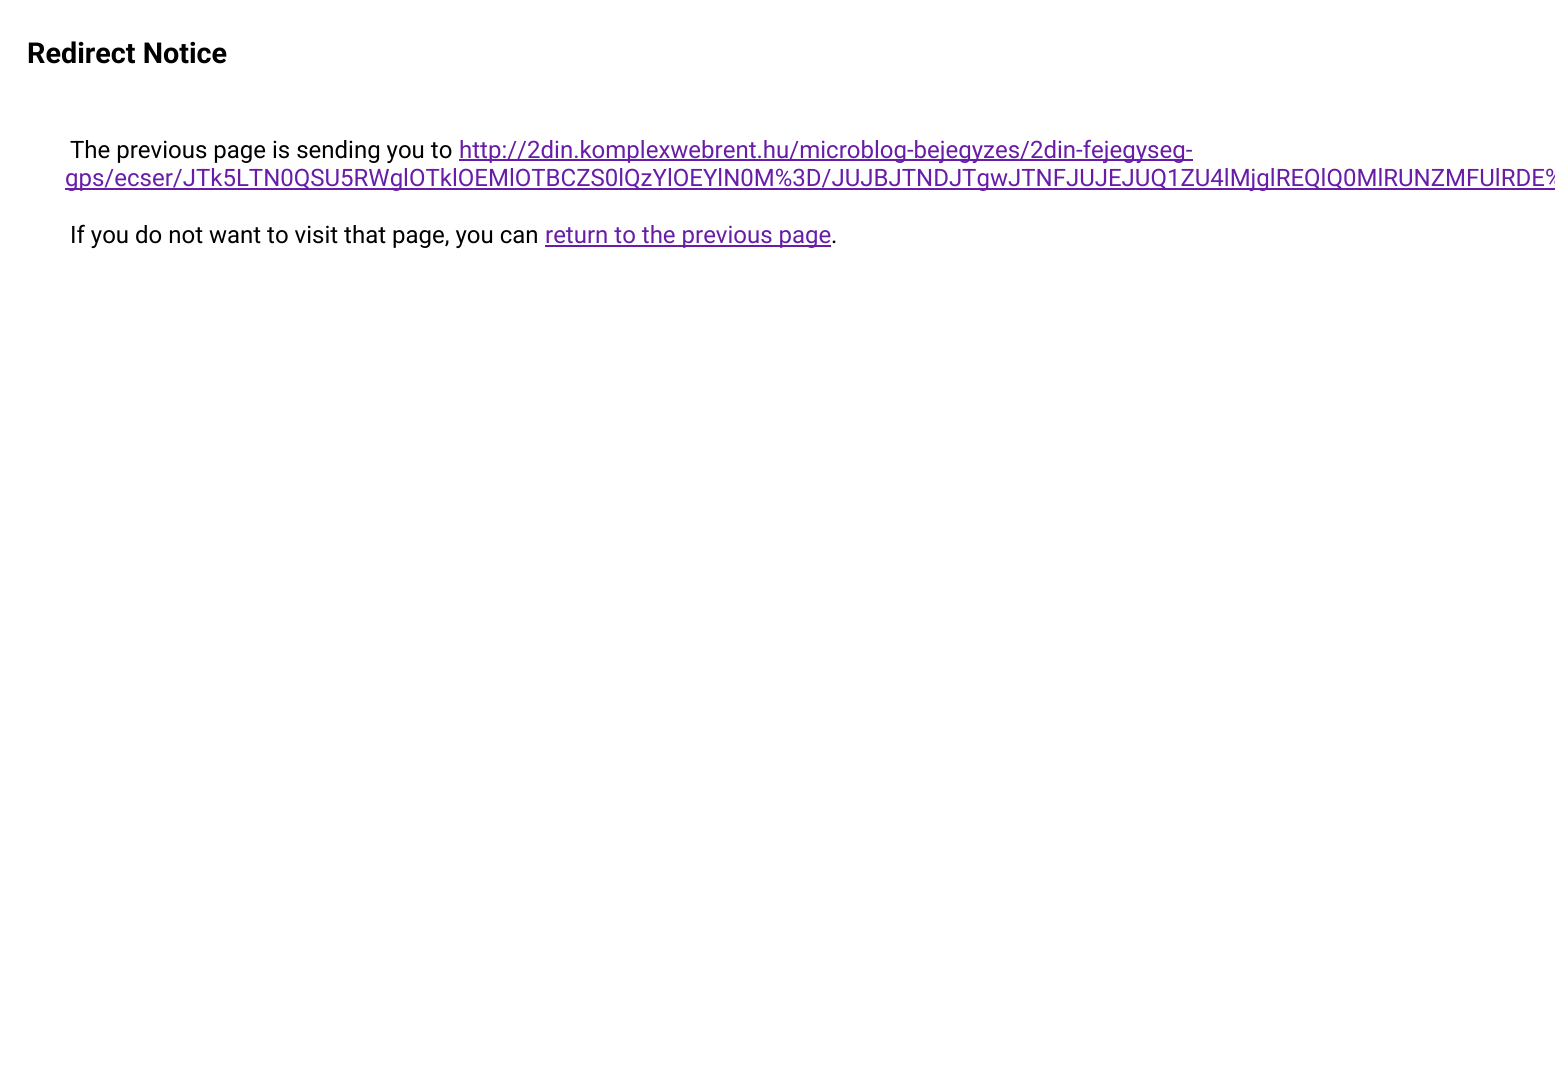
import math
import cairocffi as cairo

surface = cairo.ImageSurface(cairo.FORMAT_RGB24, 1555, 1086)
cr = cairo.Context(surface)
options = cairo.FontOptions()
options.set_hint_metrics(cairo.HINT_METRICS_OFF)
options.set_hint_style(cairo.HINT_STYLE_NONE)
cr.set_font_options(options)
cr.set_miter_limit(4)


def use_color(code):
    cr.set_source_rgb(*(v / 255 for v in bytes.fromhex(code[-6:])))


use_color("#ffffff")
cr.paint()
cr.select_font_face("Roboto", cairo.FONT_SLANT_NORMAL, cairo.FONT_WEIGHT_BOLD)
cr.set_font_size(28.75)
use_color("#000000")
cr.move_to(27, 63)
cr.show_text("Redirect Notice")
cr.select_font_face("Roboto")
cr.set_font_size(24)
cr.move_to(70, 158)
cr.show_text("The previous page is sending you to")
use_color("#681da8")
cr.rectangle(459, 159, 734, 2)
cr.fill()
cr.move_to(459, 158)
cr.show_text("http://2din.komplexwebrent.hu/microblog-bejegyzes/2din-fejegyseg-")
cr.rectangle(65, 188, 1490, 2)
cr.fill()
cr.move_to(65, 186)
cr.show_text("gps/ecser/JTk5LTN0QSU5RWglOTklOEMlOTBCZS0lQzYlOEYlN0M%3D/JUJBJTNDJTgwJTNFJUJEJUQ1ZU4lMjglREQlQ0MlRUNZMFUlRDE%")
use_color("#000000")
cr.move_to(70, 243)
cr.show_text("If you do not want to visit that page, you can")
use_color("#681da8")
cr.rectangle(545, 245, 286, 2)
cr.fill()
cr.move_to(545, 243)
cr.show_text("return to the previous page")
use_color("#000000")
cr.move_to(831, 243)
cr.show_text(".")
surface.write_to_png("result.png")
